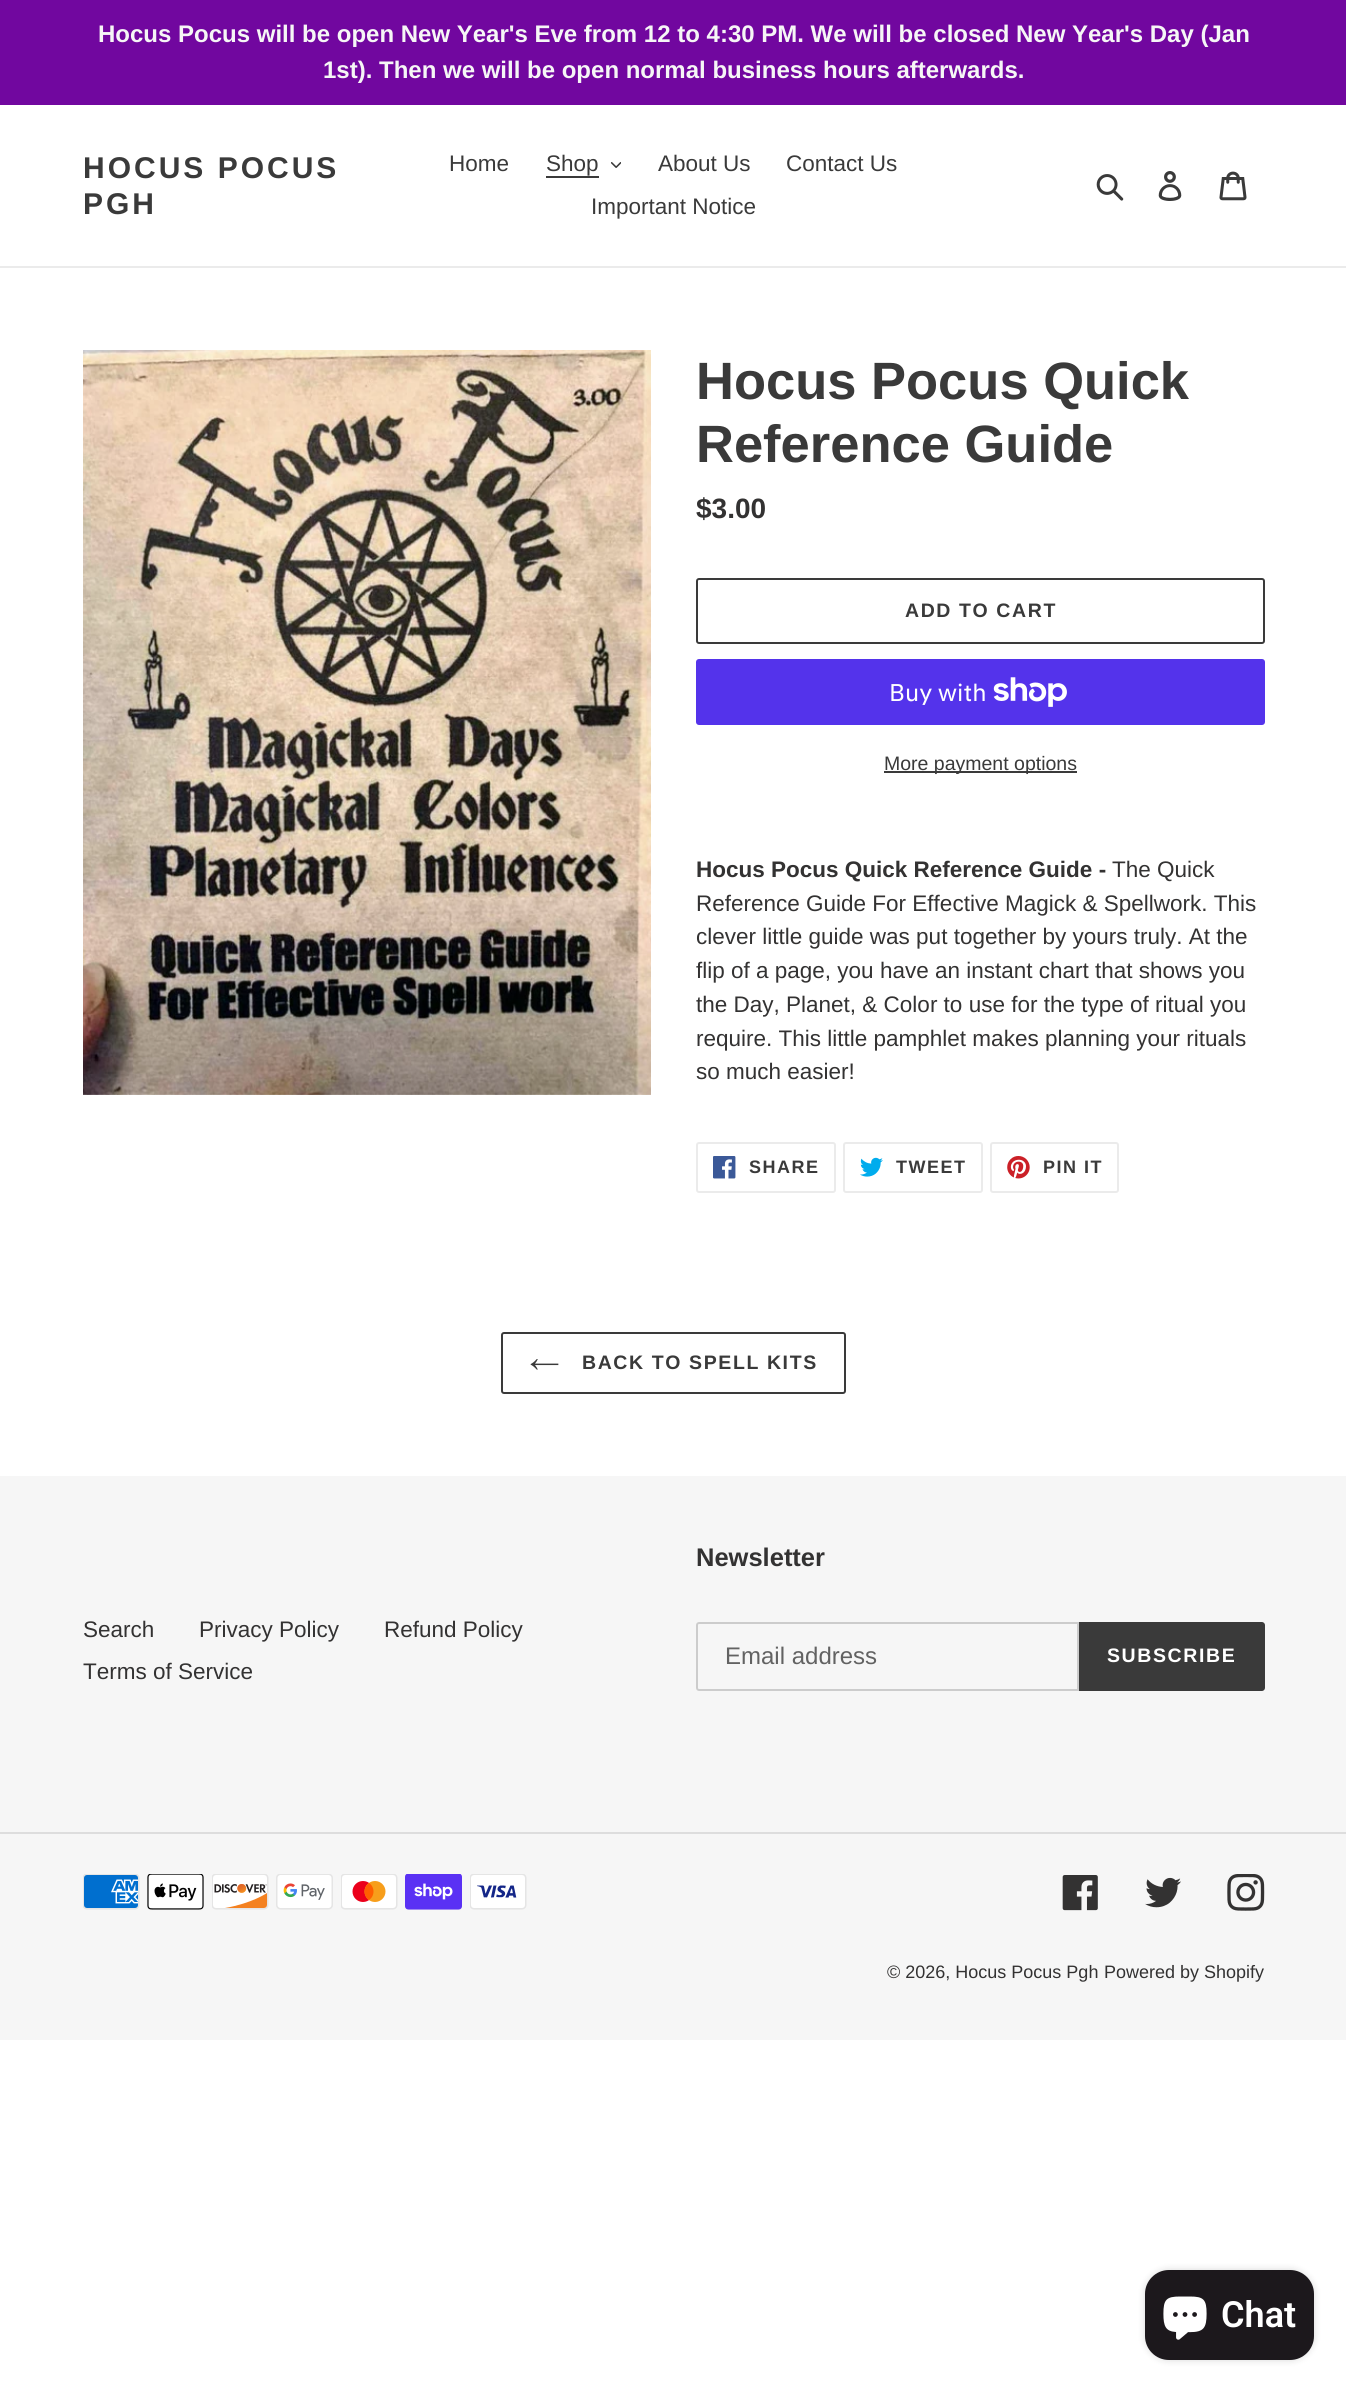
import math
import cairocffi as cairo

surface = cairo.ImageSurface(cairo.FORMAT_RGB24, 1346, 2391)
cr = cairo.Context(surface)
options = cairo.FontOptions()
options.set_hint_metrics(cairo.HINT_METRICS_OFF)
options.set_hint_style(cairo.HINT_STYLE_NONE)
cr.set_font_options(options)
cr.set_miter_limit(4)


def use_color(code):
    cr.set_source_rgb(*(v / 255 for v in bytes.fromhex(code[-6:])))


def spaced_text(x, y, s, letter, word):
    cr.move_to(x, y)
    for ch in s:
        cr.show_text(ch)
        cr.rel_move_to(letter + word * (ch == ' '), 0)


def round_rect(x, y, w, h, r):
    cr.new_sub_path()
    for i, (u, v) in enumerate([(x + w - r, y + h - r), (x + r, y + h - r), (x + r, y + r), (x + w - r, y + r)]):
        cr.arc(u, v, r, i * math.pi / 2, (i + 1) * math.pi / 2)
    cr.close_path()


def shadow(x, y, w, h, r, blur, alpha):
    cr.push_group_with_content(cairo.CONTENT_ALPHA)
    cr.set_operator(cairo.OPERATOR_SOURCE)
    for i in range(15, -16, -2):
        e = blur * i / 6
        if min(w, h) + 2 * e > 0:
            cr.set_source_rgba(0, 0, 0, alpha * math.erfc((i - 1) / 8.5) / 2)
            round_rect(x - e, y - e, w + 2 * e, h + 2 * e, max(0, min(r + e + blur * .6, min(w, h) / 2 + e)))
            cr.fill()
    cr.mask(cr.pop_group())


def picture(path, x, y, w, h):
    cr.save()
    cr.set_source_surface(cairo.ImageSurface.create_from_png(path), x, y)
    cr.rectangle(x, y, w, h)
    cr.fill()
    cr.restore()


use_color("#ffffff")
cr.paint()
use_color("#71079f")
cr.rectangle(0, 0, 1346, 105)
cr.fill()
cr.select_font_face("Liberation Sans", cairo.FONT_SLANT_NORMAL, cairo.FONT_WEIGHT_BOLD)
cr.set_font_size(24)
use_color("#f6f6f6")
cr.move_to(98, 42)
cr.show_text("Hocus Pocus will be open New Year's Eve from 12 to 4:30 PM. We will be closed New Year's Day (Jan")
cr.move_to(323, 78)
cr.show_text("1st). Then we will be open normal business hours afterwards.")
use_color("#ebebeb")
cr.rectangle(0, 266, 1346, 2)
cr.fill()
cr.set_font_size(30)
use_color("#3a3a3a")
spaced_text(83, 178, "HOCUS POCUS", 3, 0)
spaced_text(83, 214, "PGH", 3, 0)
cr.select_font_face("Liberation Sans")
cr.set_font_size(22.5)
cr.move_to(449, 171)
cr.show_text("Home")
cr.move_to(546, 171)
cr.show_text("Shop")
cr.rectangle(546, 176, 53, 2)
cr.fill()
picture("img1.png", 611, 162, 10, 6)
cr.move_to(658, 171)
cr.show_text("About Us")
cr.move_to(786, 171)
cr.show_text("Contact Us")
cr.move_to(591, 214)
cr.show_text("Important Notice")
picture("img2.png", 1096, 174, 28, 27)
picture("img3.png", 1158, 171, 24, 30)
picture("img4.png", 1219, 171, 28, 30)
picture("img5.png", 83, 350, 568, 745)
cr.select_font_face("Liberation Sans", cairo.FONT_SLANT_NORMAL, cairo.FONT_WEIGHT_BOLD)
cr.set_font_size(52.5)
cr.move_to(696, 399)
cr.show_text("Hocus Pocus Quick")
cr.move_to(696, 462)
cr.show_text("Reference Guide")
cr.set_font_size(28)
use_color("#333232")
cr.move_to(696, 518)
cr.show_text("$3.00")
round_rect(697, 579, 567, 64, 2)
use_color("#3a3a3a")
cr.stroke()
cr.set_font_size(19.5)
spaced_text(905, 617, "ADD TO CART", 1.6, 0)
use_color("#5433eb")
round_rect(696, 659, 569, 66, 3)
cr.fill()
cr.select_font_face("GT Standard")
cr.set_font_size(24)
use_color("#ffffff")
cr.move_to(889, 701)
cr.show_text("Buy with")
picture("img6.png", 993, 677, 74, 30)
use_color("#3a3a3a")
cr.rectangle(884, 771, 193, 2)
cr.fill()
cr.select_font_face("Liberation Sans")
cr.set_font_size(19.5)
cr.move_to(884, 770)
cr.show_text("More payment options")
cr.select_font_face("Liberation Sans", cairo.FONT_SLANT_NORMAL, cairo.FONT_WEIGHT_BOLD)
cr.set_font_size(22.5)
use_color("#333232")
cr.move_to(696, 877)
cr.show_text("Hocus Pocus Quick Reference Guide -")
cr.select_font_face("Liberation Sans")
cr.move_to(1112, 877)
cr.show_text("The Quick")
cr.move_to(696, 911)
cr.show_text("Reference Guide For Effective Magick & Spellwork. This")
cr.move_to(696, 944)
cr.show_text("clever little guide was put together by yours truly. At the")
cr.move_to(696, 978)
cr.show_text("flip of a page, you have an instant chart that shows you")
cr.move_to(696, 1012)
cr.show_text("the Day, Planet, & Color to use for the type of ritual you")
cr.move_to(696, 1046)
cr.show_text("require. This little pamphlet makes planning your rituals")
cr.move_to(696, 1079)
cr.show_text("so much easier!")
round_rect(697, 1143, 138, 49, 2)
use_color("#ebebeb")
cr.stroke()
picture("img7.png", 713, 1156, 23, 23)
cr.select_font_face("Liberation Sans", cairo.FONT_SLANT_NORMAL, cairo.FONT_WEIGHT_BOLD)
cr.set_font_size(18)
use_color("#3a3a3a")
spaced_text(749, 1173, "SHARE", 1.5, 0)
round_rect(844, 1143, 138, 49, 2)
use_color("#ebebeb")
cr.stroke()
picture("img8.png", 860, 1157, 23, 20)
use_color("#3a3a3a")
spaced_text(896, 1173, "TWEET", 1.5, 0)
round_rect(991, 1143, 127, 49, 2)
use_color("#ebebeb")
cr.stroke()
picture("img9.png", 1007, 1156, 23, 23)
use_color("#3a3a3a")
spaced_text(1043, 1173, "PIN IT", 1.5, 0)
round_rect(502, 1333, 343, 60, 2)
cr.stroke()
picture("img10.png", 530, 1359, 29, 11)
cr.set_font_size(19.5)
spaced_text(582, 1369, "BACK TO SPELL KITS", 1.6, 0)
use_color("#f6f6f6")
cr.rectangle(0, 1476, 1346, 564)
cr.fill()
cr.select_font_face("Liberation Sans")
cr.set_font_size(22.5)
use_color("#333232")
cr.move_to(83, 1637)
cr.show_text("Search")
cr.move_to(199, 1637)
cr.show_text("Privacy Policy")
cr.move_to(384, 1637)
cr.show_text("Refund Policy")
cr.move_to(83, 1679)
cr.show_text("Terms of Service")
cr.select_font_face("Liberation Sans", cairo.FONT_SLANT_NORMAL, cairo.FONT_WEIGHT_BOLD)
cr.set_font_size(25.5)
cr.move_to(696, 1566)
cr.show_text("Newsletter")
cr.new_path()
cr.move_to(699, 1623)
cr.line_to(1078, 1623)
cr.line_to(1078, 1690)
cr.line_to(699, 1690)
cr.curve_to(698, 1690, 697, 1689, 697, 1688)
cr.line_to(697, 1625)
cr.curve_to(697, 1624, 698, 1623, 699, 1623)
cr.close_path()
use_color("#cccccc")
cr.stroke()
cr.select_font_face("Liberation Sans")
cr.set_font_size(24)
use_color("#626262")
cr.move_to(725, 1664)
cr.show_text("Email address")
use_color("#3a3a3a")
cr.new_path()
cr.move_to(1079, 1622)
cr.line_to(1262, 1622)
cr.curve_to(1263.5, 1622, 1265, 1623.5, 1265, 1625)
cr.line_to(1265, 1688)
cr.curve_to(1265, 1689.5, 1263.5, 1691, 1262, 1691)
cr.line_to(1079, 1691)
cr.close_path()
cr.fill()
cr.select_font_face("Liberation Sans", cairo.FONT_SLANT_NORMAL, cairo.FONT_WEIGHT_BOLD)
cr.set_font_size(19.5)
use_color("#ffffff")
spaced_text(1107, 1662, "SUBSCRIBE", 1.6, 0)
use_color("#dddddd")
cr.rectangle(0, 1832, 1346, 2)
cr.fill()
picture("img11.png", 83, 1874, 57, 36)
picture("img12.png", 147, 1874, 57, 36)
picture("img13.png", 212, 1874, 57, 36)
picture("img14.png", 276, 1874, 57, 36)
picture("img15.png", 341, 1874, 57, 36)
picture("img16.png", 405, 1874, 57, 36)
picture("img17.png", 470, 1874, 57, 36)
picture("img18.png", 1062, 1875, 36, 36)
picture("img19.png", 1145, 1877, 36, 31)
picture("img20.png", 1227, 1874, 38, 37)
cr.select_font_face("Liberation Sans")
cr.set_font_size(18)
use_color("#333232")
cr.move_to(887, 1978)
cr.show_text("© 2026, Hocus Pocus Pgh")
cr.move_to(1104, 1978)
cr.show_text("Powered by Shopify")
use_color("#000000")
shadow(1145, 2270, 169, 90, 24, 4, 0.15)
use_color("#1c181c")
round_rect(1145, 2270, 169, 90, 24)
cr.fill()
picture("img21.png", 1163, 2296, 44, 44)
cr.select_font_face("Roboto SemiBold")
cr.set_font_size(36)
use_color("#ffffff")
cr.move_to(1221, 2327)
cr.show_text("Chat")
surface.write_to_png("result.png")
